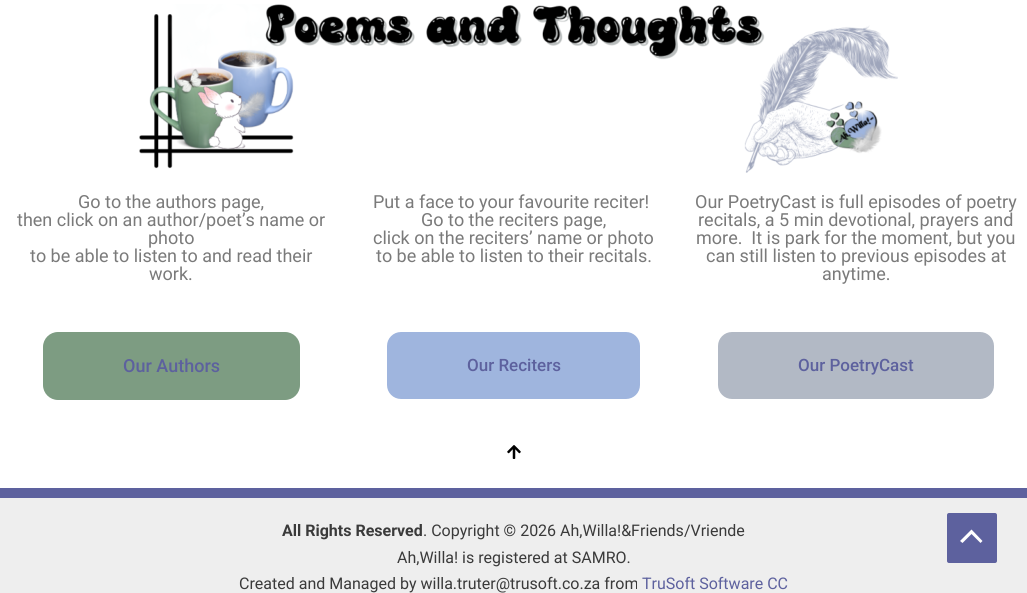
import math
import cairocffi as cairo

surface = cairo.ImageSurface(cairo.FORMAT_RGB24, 1027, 593)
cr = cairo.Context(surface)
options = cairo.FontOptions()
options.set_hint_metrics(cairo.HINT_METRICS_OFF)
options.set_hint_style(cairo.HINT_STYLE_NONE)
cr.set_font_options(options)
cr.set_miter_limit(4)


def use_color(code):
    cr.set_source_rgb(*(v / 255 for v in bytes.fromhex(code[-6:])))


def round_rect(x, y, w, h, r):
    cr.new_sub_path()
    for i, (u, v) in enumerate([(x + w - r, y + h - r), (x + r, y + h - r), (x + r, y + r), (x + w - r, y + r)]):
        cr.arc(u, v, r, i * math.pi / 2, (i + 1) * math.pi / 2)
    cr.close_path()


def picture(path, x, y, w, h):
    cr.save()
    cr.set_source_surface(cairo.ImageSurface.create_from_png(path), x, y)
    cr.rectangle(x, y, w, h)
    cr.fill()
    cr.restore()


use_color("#ffffff")
cr.paint()
picture("img1.png", 139, 4, 759, 169)
cr.select_font_face("Roboto")
cr.set_font_size(18)
use_color("#7a7a7a")
cr.move_to(78, 208)
cr.show_text("Go to the authors page,")
cr.move_to(17, 226)
cr.show_text("then click on an author/poet’s name or")
cr.move_to(148, 244)
cr.show_text("photo")
cr.move_to(30, 262)
cr.show_text("to be able to listen to and read their")
cr.move_to(149, 280)
cr.show_text("work.")
cr.move_to(373, 208)
cr.show_text("Put a face to your favourite reciter!")
cr.move_to(421, 226)
cr.show_text("Go to the reciters page,")
cr.move_to(373, 244)
cr.show_text("click on the reciters’ name or photo")
cr.move_to(376, 262)
cr.show_text("to be able to listen to their recitals.")
cr.move_to(695, 208)
cr.show_text("Our PoetryCast is full episodes of poetry")
cr.move_to(698, 226)
cr.show_text("recitals, a 5 min devotional, prayers and")
cr.move_to(696, 244)
cr.show_text("more.  It is park for the moment, but you")
cr.move_to(706, 262)
cr.show_text("can still listen to previous episodes at")
cr.move_to(822, 280)
cr.show_text("anytime.")
use_color("#7d9c82")
round_rect(43, 332, 257, 68, 15)
cr.fill()
cr.select_font_face("Roboto Medium")
use_color("#5d619e")
cr.move_to(123, 372)
cr.show_text("Our Authors")
use_color("#9fb5de")
round_rect(387, 332, 253, 67, 14)
cr.fill()
cr.set_font_size(17)
use_color("#5d619e")
cr.move_to(467, 371)
cr.show_text("Our Reciters")
use_color("#b2b9c5")
round_rect(718, 332, 276, 67, 14)
cr.fill()
use_color("#5d619e")
cr.move_to(798, 371)
cr.show_text("Our PoetryCast")
picture("img2.png", 507, 445, 14, 14)
use_color("#eeeeee")
cr.rectangle(0, 498, 1027, 95)
cr.fill()
use_color("#5d619e")
cr.rectangle(0, 488, 1027, 10)
cr.fill()
cr.select_font_face("Roboto", cairo.FONT_SLANT_NORMAL, cairo.FONT_WEIGHT_BOLD)
cr.set_font_size(16)
use_color("#3a3a3a")
cr.move_to(282, 536)
cr.show_text("All Rights Reserved")
cr.select_font_face("Roboto")
cr.move_to(423, 536)
cr.show_text(". Copyright © 2026 Ah,Willa!&Friends/Vriende")
cr.move_to(397, 563)
cr.show_text("Ah,Willa! is registered at SAMRO.")
cr.move_to(239, 589)
cr.show_text("Created and Managed by willa.truter@trusoft.co.za from")
use_color("#5d619e")
cr.move_to(642, 589)
cr.show_text("TruSoft Software CC")
round_rect(947, 513, 50, 50, 2)
cr.fill()
use_color("#ffffff")
cr.new_path()
cr.move_to(982.5, 541)
cr.line_to(971.5, 529.5)
cr.line_to(960, 541)
cr.line_to(962.5, 543)
cr.line_to(971.5, 534)
cr.line_to(980.5, 543)
cr.close_path()
cr.fill()
surface.write_to_png("result.png")
